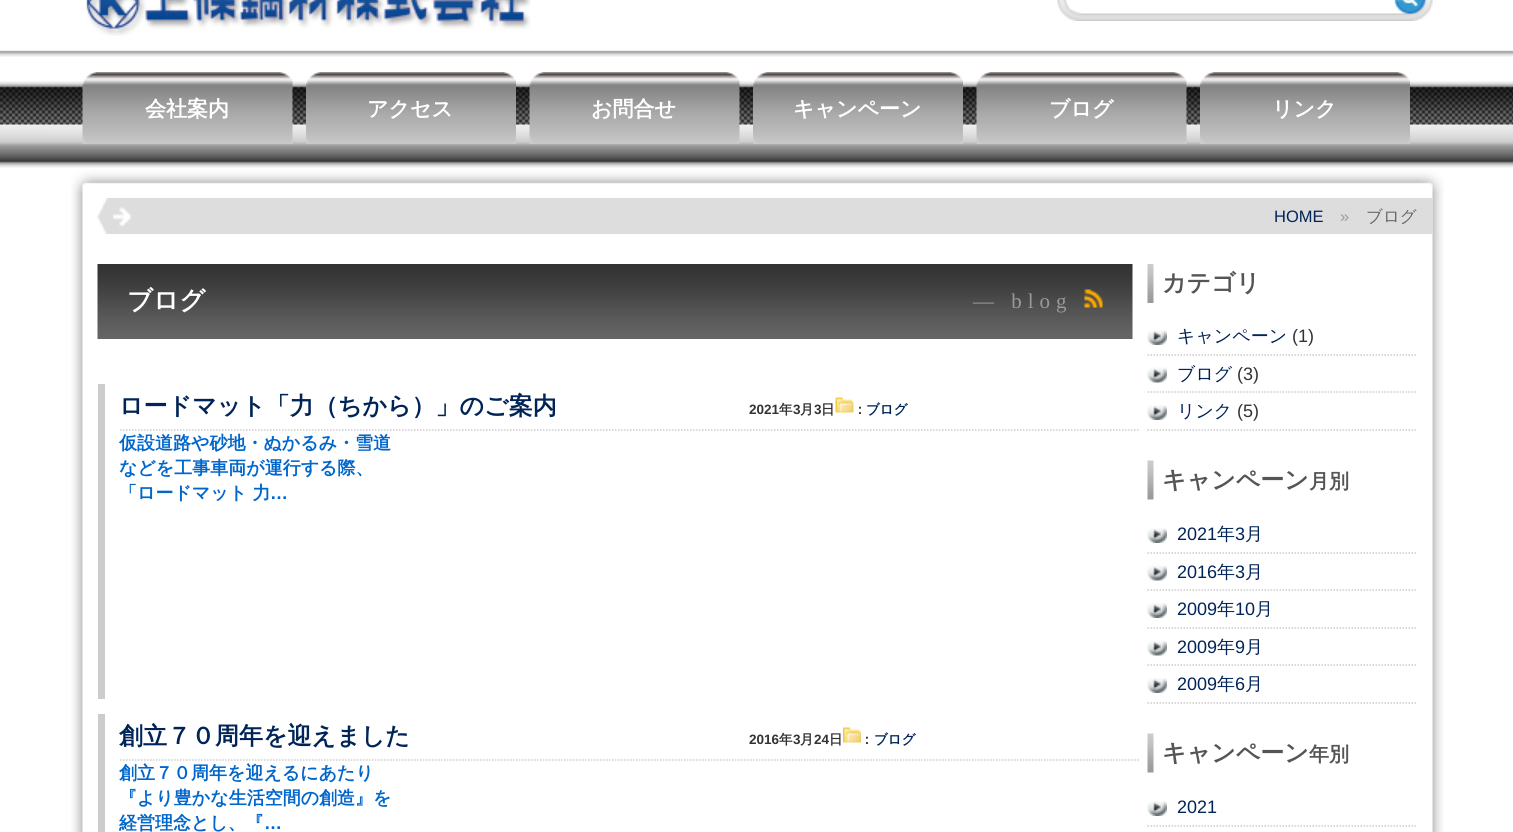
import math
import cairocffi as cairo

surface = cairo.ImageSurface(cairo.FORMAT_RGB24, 1513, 832)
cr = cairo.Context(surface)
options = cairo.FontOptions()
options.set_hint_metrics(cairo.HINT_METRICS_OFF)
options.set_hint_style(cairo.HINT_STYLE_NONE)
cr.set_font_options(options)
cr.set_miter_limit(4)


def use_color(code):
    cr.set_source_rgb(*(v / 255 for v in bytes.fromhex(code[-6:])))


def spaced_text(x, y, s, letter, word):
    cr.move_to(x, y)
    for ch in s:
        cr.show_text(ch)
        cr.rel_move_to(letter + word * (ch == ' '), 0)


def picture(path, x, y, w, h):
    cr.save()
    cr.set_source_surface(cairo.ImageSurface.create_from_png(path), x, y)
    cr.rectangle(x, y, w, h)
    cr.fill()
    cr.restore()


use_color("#ffffff")
cr.paint()
picture("img1.png", 0, 50, 1513, 7)
picture("img2.png", 86, 0, 445, 36)
picture("img3.png", 1057, 0, 376, 21)
picture("img4.png", 0, 81, 1513, 87)
picture("img5.png", 82, 72, 211, 72)
cr.select_font_face("WenQuanYi Zen Hei", cairo.FONT_SLANT_NORMAL, cairo.FONT_WEIGHT_BOLD)
cr.set_font_size(21)
use_color("#ffffff")
cr.move_to(145, 116)
cr.show_text("会社案内")
picture("img6.png", 306, 72, 210, 72)
cr.move_to(367, 116)
cr.show_text("アクセス")
picture("img7.png", 529, 72, 211, 72)
cr.move_to(591, 116)
cr.show_text("お問合せ")
picture("img8.png", 753, 72, 210, 72)
cr.move_to(793, 116)
cr.show_text("キャンペーン")
picture("img9.png", 976, 72, 211, 72)
cr.move_to(1049, 116)
cr.show_text("ブログ")
picture("img6.png", 1200, 72, 210, 72)
cr.move_to(1272, 116)
cr.show_text("リンク")
picture("img10.png", 71, 192, 1373, 640)
picture("img11.png", 71, 168, 1373, 24)
use_color("#dddddd")
cr.rectangle(98, 198, 1335, 36)
cr.fill()
picture("img12.png", 97, 198, 34, 36)
cr.select_font_face("Liberation Sans")
cr.set_font_size(16.5)
use_color("#002458")
cr.move_to(1274, 222)
cr.show_text("HOME")
use_color("#999999")
cr.move_to(1340, 222)
cr.show_text("»")
cr.select_font_face("WenQuanYi Zen Hei Medium")
use_color("#666666")
cr.move_to(1366, 222)
cr.show_text("ブログ")
picture("img13.png", 97, 264, 1036, 75)
cr.select_font_face("WenQuanYi Zen Hei", cairo.FONT_SLANT_NORMAL, cairo.FONT_WEIGHT_BOLD)
cr.set_font_size(25.5)
use_color("#ffffff")
cr.move_to(127, 309)
cr.show_text("ブログ")
cr.select_font_face("Liberation Serif")
cr.set_font_size(21)
use_color("#999999")
spaced_text(973, 308, "— blog", 6, 0)
picture("img14.png", 1084, 289, 19, 19)
use_color("#cccccc")
cr.rectangle(98, 384, 7, 315)
cr.fill()
cr.new_path()
cr.move_to(120, 430)
cr.line_to(1140, 430)
cr.set_line_width(1.5)
cr.set_dash([1.5, 1.5])
cr.stroke()
cr.select_font_face("WenQuanYi Zen Hei", cairo.FONT_SLANT_NORMAL, cairo.FONT_WEIGHT_BOLD)
cr.set_font_size(24)
use_color("#002458")
cr.move_to(119, 414)
cr.show_text("ロードマット「力（ちから）」のご案内")
cr.select_font_face("Liberation Sans", cairo.FONT_SLANT_NORMAL, cairo.FONT_WEIGHT_BOLD)
cr.set_font_size(13.5)
use_color("#333333")
cr.move_to(749, 414)
cr.show_text("2021")
cr.select_font_face("WenQuanYi Zen Hei", cairo.FONT_SLANT_NORMAL, cairo.FONT_WEIGHT_BOLD)
cr.move_to(779, 414)
cr.show_text("年")
cr.select_font_face("Liberation Sans", cairo.FONT_SLANT_NORMAL, cairo.FONT_WEIGHT_BOLD)
cr.move_to(793, 414)
cr.show_text("3")
cr.select_font_face("WenQuanYi Zen Hei", cairo.FONT_SLANT_NORMAL, cairo.FONT_WEIGHT_BOLD)
cr.move_to(800, 414)
cr.show_text("月")
cr.select_font_face("Liberation Sans", cairo.FONT_SLANT_NORMAL, cairo.FONT_WEIGHT_BOLD)
cr.move_to(814, 414)
cr.show_text("3")
cr.select_font_face("WenQuanYi Zen Hei", cairo.FONT_SLANT_NORMAL, cairo.FONT_WEIGHT_BOLD)
cr.move_to(821, 414)
cr.show_text("日")
picture("img15.png", 835, 397, 19, 16)
cr.move_to(853, 414)
cr.show_text("：")
use_color("#002458")
cr.move_to(866, 414)
cr.show_text("ブログ")
cr.set_font_size(18)
use_color("#0066cc")
cr.move_to(119, 449)
cr.show_text("仮設道路や砂地・ぬかるみ・雪道")
cr.move_to(119, 474)
cr.show_text("などを工事車両が運行する際、")
cr.move_to(119, 499)
cr.show_text("「ロードマット 力")
cr.select_font_face("Liberation Sans", cairo.FONT_SLANT_NORMAL, cairo.FONT_WEIGHT_BOLD)
cr.move_to(270, 499)
cr.show_text("…")
use_color("#cccccc")
cr.rectangle(98, 714, 7, 118)
cr.fill()
cr.new_path()
cr.move_to(120, 760)
cr.line_to(1140, 760)
cr.stroke()
cr.select_font_face("WenQuanYi Zen Hei", cairo.FONT_SLANT_NORMAL, cairo.FONT_WEIGHT_BOLD)
cr.set_font_size(24)
use_color("#002458")
cr.move_to(119, 744)
cr.show_text("創立７０周年を迎えました")
cr.select_font_face("Liberation Sans", cairo.FONT_SLANT_NORMAL, cairo.FONT_WEIGHT_BOLD)
cr.set_font_size(13.5)
use_color("#333333")
cr.move_to(749, 744)
cr.show_text("2016")
cr.select_font_face("WenQuanYi Zen Hei", cairo.FONT_SLANT_NORMAL, cairo.FONT_WEIGHT_BOLD)
cr.move_to(779, 744)
cr.show_text("年")
cr.select_font_face("Liberation Sans", cairo.FONT_SLANT_NORMAL, cairo.FONT_WEIGHT_BOLD)
cr.move_to(793, 744)
cr.show_text("3")
cr.select_font_face("WenQuanYi Zen Hei", cairo.FONT_SLANT_NORMAL, cairo.FONT_WEIGHT_BOLD)
cr.move_to(800, 744)
cr.show_text("月")
cr.select_font_face("Liberation Sans", cairo.FONT_SLANT_NORMAL, cairo.FONT_WEIGHT_BOLD)
cr.move_to(814, 744)
cr.show_text("24")
cr.select_font_face("WenQuanYi Zen Hei", cairo.FONT_SLANT_NORMAL, cairo.FONT_WEIGHT_BOLD)
cr.move_to(829, 744)
cr.show_text("日")
picture("img16.png", 843, 727, 18, 16)
cr.move_to(860, 744)
cr.show_text("：")
use_color("#002458")
cr.move_to(874, 744)
cr.show_text("ブログ")
cr.set_font_size(18)
use_color("#0066cc")
cr.move_to(119, 779)
cr.show_text("創立７０周年を迎えるにあたり")
cr.move_to(119, 804)
cr.show_text("『より豊かな生活空間の創造』を")
cr.move_to(119, 829)
cr.show_text("経営理念とし、『")
cr.select_font_face("Liberation Sans", cairo.FONT_SLANT_NORMAL, cairo.FONT_WEIGHT_BOLD)
cr.move_to(264, 829)
cr.show_text("…")
picture("img17.png", 1147, 264, 7, 39)
cr.select_font_face("WenQuanYi Zen Hei", cairo.FONT_SLANT_NORMAL, cairo.FONT_WEIGHT_BOLD)
cr.set_font_size(24)
use_color("#555555")
cr.move_to(1162, 291)
cr.show_text("カテゴリ")
picture("img18.png", 1147, 330, 20, 15)
cr.new_path()
cr.move_to(1147.5, 355)
cr.line_to(1417.5, 355)
use_color("#cccccc")
cr.stroke()
cr.select_font_face("WenQuanYi Zen Hei Medium")
cr.set_font_size(18)
use_color("#002458")
cr.move_to(1177, 342)
cr.show_text("キャンペーン")
cr.select_font_face("Liberation Sans")
use_color("#333333")
cr.move_to(1292, 342)
cr.show_text("(1)")
picture("img19.png", 1147, 367, 20, 16)
cr.new_path()
cr.move_to(1147.5, 392)
cr.line_to(1417.5, 392)
use_color("#cccccc")
cr.stroke()
cr.select_font_face("WenQuanYi Zen Hei Medium")
use_color("#002458")
cr.move_to(1177, 380)
cr.show_text("ブログ")
cr.select_font_face("Liberation Sans")
use_color("#333333")
cr.move_to(1237, 380)
cr.show_text("(3)")
picture("img18.png", 1147, 405, 20, 15)
cr.new_path()
cr.move_to(1147.5, 430)
cr.line_to(1417.5, 430)
use_color("#cccccc")
cr.stroke()
cr.select_font_face("WenQuanYi Zen Hei Medium")
use_color("#002458")
cr.move_to(1177, 417)
cr.show_text("リンク")
cr.select_font_face("Liberation Sans")
use_color("#333333")
cr.move_to(1237, 417)
cr.show_text("(5)")
picture("img20.png", 1147, 460, 7, 40)
cr.select_font_face("WenQuanYi Zen Hei", cairo.FONT_SLANT_NORMAL, cairo.FONT_WEIGHT_BOLD)
cr.set_font_size(24)
use_color("#555555")
cr.move_to(1162, 488)
cr.show_text("キャンペーン")
cr.set_font_size(20)
cr.move_to(1309, 488)
cr.show_text("月別")
picture("img18.png", 1147, 528, 20, 15)
cr.new_path()
cr.move_to(1147.5, 553)
cr.line_to(1417.5, 553)
use_color("#cccccc")
cr.stroke()
cr.select_font_face("Liberation Sans")
cr.set_font_size(18)
use_color("#002458")
cr.move_to(1177, 540)
cr.show_text("2021")
cr.select_font_face("WenQuanYi Zen Hei Medium")
cr.move_to(1217, 540)
cr.show_text("年")
cr.select_font_face("Liberation Sans")
cr.move_to(1235, 540)
cr.show_text("3")
cr.select_font_face("WenQuanYi Zen Hei Medium")
cr.move_to(1245, 540)
cr.show_text("月")
picture("img19.png", 1147, 565, 20, 16)
cr.new_path()
cr.move_to(1147.5, 590)
cr.line_to(1417.5, 590)
use_color("#cccccc")
cr.stroke()
cr.select_font_face("Liberation Sans")
use_color("#002458")
cr.move_to(1177, 578)
cr.show_text("2016")
cr.select_font_face("WenQuanYi Zen Hei Medium")
cr.move_to(1217, 578)
cr.show_text("年")
cr.select_font_face("Liberation Sans")
cr.move_to(1235, 578)
cr.show_text("3")
cr.select_font_face("WenQuanYi Zen Hei Medium")
cr.move_to(1245, 578)
cr.show_text("月")
picture("img18.png", 1147, 603, 20, 15)
cr.new_path()
cr.move_to(1147.5, 628)
cr.line_to(1417.5, 628)
use_color("#cccccc")
cr.stroke()
cr.select_font_face("Liberation Sans")
use_color("#002458")
cr.move_to(1177, 615)
cr.show_text("2009")
cr.select_font_face("WenQuanYi Zen Hei Medium")
cr.move_to(1217, 615)
cr.show_text("年")
cr.select_font_face("Liberation Sans")
cr.move_to(1235, 615)
cr.show_text("10")
cr.select_font_face("WenQuanYi Zen Hei Medium")
cr.move_to(1255, 615)
cr.show_text("月")
picture("img19.png", 1147, 640, 20, 16)
cr.new_path()
cr.move_to(1147.5, 665)
cr.line_to(1417.5, 665)
use_color("#cccccc")
cr.stroke()
cr.select_font_face("Liberation Sans")
use_color("#002458")
cr.move_to(1177, 653)
cr.show_text("2009")
cr.select_font_face("WenQuanYi Zen Hei Medium")
cr.move_to(1217, 653)
cr.show_text("年")
cr.select_font_face("Liberation Sans")
cr.move_to(1235, 653)
cr.show_text("9")
cr.select_font_face("WenQuanYi Zen Hei Medium")
cr.move_to(1245, 653)
cr.show_text("月")
picture("img18.png", 1147, 678, 20, 15)
cr.new_path()
cr.move_to(1147.5, 703)
cr.line_to(1417.5, 703)
use_color("#cccccc")
cr.stroke()
cr.select_font_face("Liberation Sans")
use_color("#002458")
cr.move_to(1177, 690)
cr.show_text("2009")
cr.select_font_face("WenQuanYi Zen Hei Medium")
cr.move_to(1217, 690)
cr.show_text("年")
cr.select_font_face("Liberation Sans")
cr.move_to(1235, 690)
cr.show_text("6")
cr.select_font_face("WenQuanYi Zen Hei Medium")
cr.move_to(1245, 690)
cr.show_text("月")
picture("img20.png", 1147, 733, 7, 40)
cr.select_font_face("WenQuanYi Zen Hei", cairo.FONT_SLANT_NORMAL, cairo.FONT_WEIGHT_BOLD)
cr.set_font_size(24)
use_color("#555555")
cr.move_to(1162, 761)
cr.show_text("キャンペーン")
cr.set_font_size(20)
cr.move_to(1309, 761)
cr.show_text("年別")
picture("img18.png", 1147, 801, 20, 15)
cr.new_path()
cr.move_to(1147.5, 826)
cr.line_to(1417.5, 826)
use_color("#cccccc")
cr.stroke()
cr.select_font_face("Liberation Sans")
cr.set_font_size(18)
use_color("#002458")
cr.move_to(1177, 813)
cr.show_text("2021")
surface.write_to_png("result.png")
